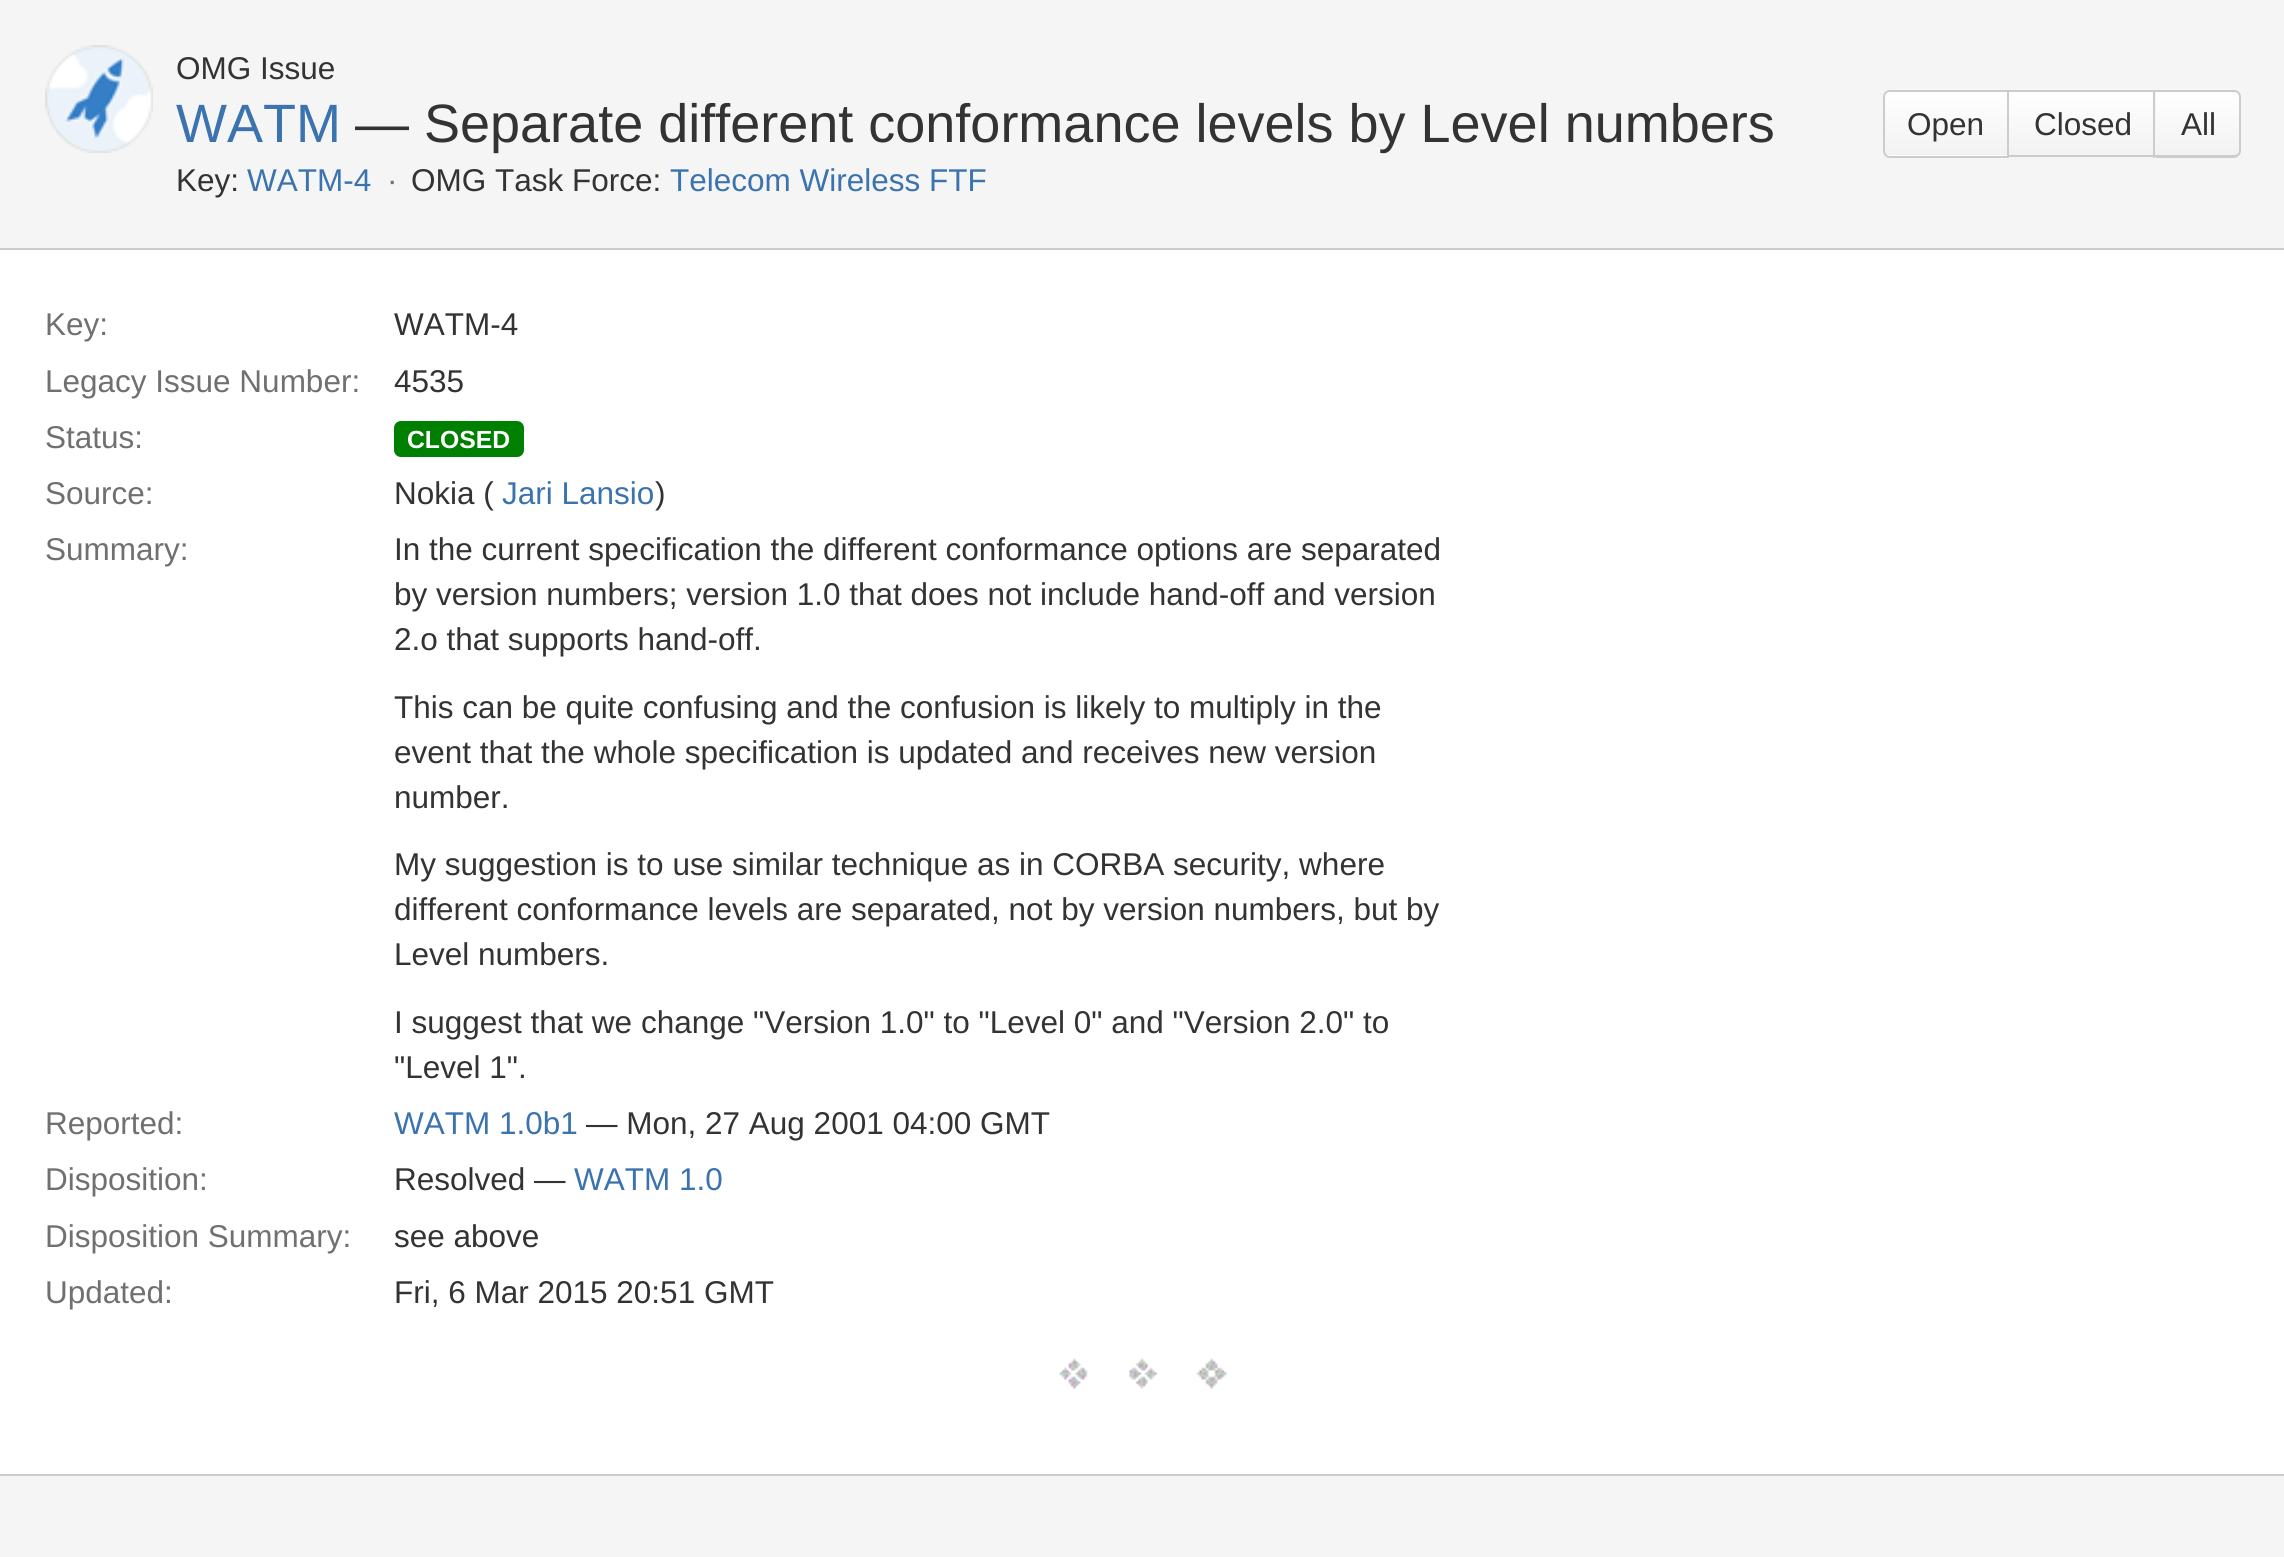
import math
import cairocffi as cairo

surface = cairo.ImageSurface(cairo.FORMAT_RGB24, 2284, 1557)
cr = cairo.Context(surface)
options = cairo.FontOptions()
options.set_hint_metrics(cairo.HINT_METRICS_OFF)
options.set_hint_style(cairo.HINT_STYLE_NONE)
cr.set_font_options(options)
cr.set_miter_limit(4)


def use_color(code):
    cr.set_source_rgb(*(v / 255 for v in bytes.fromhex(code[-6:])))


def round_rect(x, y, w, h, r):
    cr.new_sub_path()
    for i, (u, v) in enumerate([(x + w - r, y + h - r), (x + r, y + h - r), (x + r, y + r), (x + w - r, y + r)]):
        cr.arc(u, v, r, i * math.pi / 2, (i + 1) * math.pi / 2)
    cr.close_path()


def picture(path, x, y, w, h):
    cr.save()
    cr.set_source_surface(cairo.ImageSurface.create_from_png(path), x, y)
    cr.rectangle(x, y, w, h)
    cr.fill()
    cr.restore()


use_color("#f5f5f5")
cr.paint()
picture("img1.png", 45, 45, 108, 108)
cr.select_font_face("Liberation Sans")
cr.set_font_size(31.5)
use_color("#333333")
cr.move_to(176, 79)
cr.show_text("OMG Issue")
cr.set_font_size(54)
use_color("#3b73af")
cr.move_to(176, 142)
cr.show_text("WATM")
use_color("#333333")
cr.move_to(355, 142)
cr.show_text("— Separate different conformance levels by Level numbers")
cr.set_font_size(31.5)
cr.move_to(176, 191)
cr.show_text("Key:")
use_color("#3b73af")
cr.move_to(247, 191)
cr.show_text("WATM-4")
use_color("#707070")
cr.move_to(387, 191)
cr.show_text("·")
use_color("#333333")
cr.move_to(411, 191)
cr.show_text("OMG Task Force:")
use_color("#3b73af")
cr.move_to(670, 191)
cr.show_text("Telecom Wireless FTF")
cr.save()
cr.new_path()
cr.move_to(1890, 90)
cr.line_to(2009, 90)
cr.line_to(2009, 158)
cr.line_to(1890, 158)
cr.curve_to(1886, 158, 1883, 155, 1883, 151)
cr.line_to(1883, 97)
cr.curve_to(1883, 93, 1886, 90, 1890, 90)
cr.close_path()
cr.clip()
gradient = cairo.LinearGradient(1946, 92, 1946, 155)
gradient.add_color_stop_rgba(0, 1, 1, 1, 1)
gradient.add_color_stop_rgba(1, 0.949, 0.949, 0.949, 1)
cr.set_source(gradient)
cr.rectangle(1883, 92, 124, 63)
cr.fill()
gradient = cairo.LinearGradient(1946, 155, 1946, 218)
gradient.add_color_stop_rgba(0, 1, 1, 1, 1)
gradient.add_color_stop_rgba(1, 0.949, 0.949, 0.949, 1)
cr.set_source(gradient)
cr.rectangle(1883, 155, 126, 3)
cr.fill()
cr.restore()
cr.new_path()
cr.move_to(1890, 91)
cr.line_to(2008, 91)
cr.line_to(2008, 157)
cr.line_to(1890, 157)
cr.curve_to(1886.5, 157, 1884, 154.5, 1884, 151)
cr.line_to(1884, 97)
cr.curve_to(1884, 93.5, 1886.5, 91, 1890, 91)
cr.close_path()
use_color("#cccccc")
cr.stroke()
use_color("#333333")
cr.move_to(1907, 135)
cr.show_text("Open")
gradient = cairo.LinearGradient(2081, 92, 2081, 155)
gradient.add_color_stop_rgba(0, 1, 1, 1, 1)
gradient.add_color_stop_rgba(1, 0.949, 0.949, 0.949, 1)
cr.set_source(gradient)
cr.rectangle(2009, 92, 144, 63)
cr.fill()
use_color("#cccccc")
cr.rectangle(2009, 90, 147, 2)
cr.fill()
cr.rectangle(2153, 90, 2, 68)
cr.fill()
cr.rectangle(2009, 155, 147, 2)
cr.fill()
use_color("#333333")
cr.move_to(2034, 135)
cr.show_text("Closed")
gradient = cairo.LinearGradient(2197, 92, 2197, 155)
gradient.add_color_stop_rgba(0, 1, 1, 1, 1)
gradient.add_color_stop_rgba(1, 0.949, 0.949, 0.949, 1)
cr.set_source(gradient)
cr.new_path()
cr.move_to(2156, 92)
cr.line_to(2234, 92)
cr.curve_to(2237, 92, 2239, 94, 2239, 97)
cr.line_to(2239, 150)
cr.curve_to(2239, 153, 2237, 155, 2234, 155)
cr.line_to(2156, 155)
cr.close_path()
cr.fill()
use_color("#cccccc")
cr.set_fill_rule(cairo.FILL_RULE_EVEN_ODD)
cr.new_path()
cr.move_to(2156, 90)
cr.line_to(2234, 90)
cr.curve_to(2238, 90, 2241, 93, 2241, 97)
cr.line_to(2241, 151)
cr.curve_to(2241, 154, 2238, 158, 2234, 158)
cr.line_to(2156, 158)
cr.close_path()
cr.move_to(2156, 92)
cr.line_to(2234, 92)
cr.curve_to(2237, 92, 2239, 94, 2239, 97)
cr.line_to(2239, 151)
cr.curve_to(2239, 153, 2237, 155, 2234, 155)
cr.line_to(2156, 155)
cr.close_path()
cr.fill()
use_color("#333333")
cr.move_to(2181, 135)
cr.show_text("All")
use_color("#ffffff")
cr.rectangle(0, 250, 2284, 1224)
cr.fill()
use_color("#cccccc")
cr.rectangle(0, 248, 2284, 2)
cr.fill()
cr.rectangle(0, 1474, 2284, 2)
cr.fill()
use_color("#707070")
cr.move_to(45, 335)
cr.show_text("Key:")
use_color("#333333")
cr.move_to(394, 335)
cr.show_text("WATM-4")
use_color("#707070")
cr.move_to(45, 392)
cr.show_text("Legacy Issue Number:")
use_color("#333333")
cr.move_to(394, 392)
cr.show_text("4535")
use_color("#707070")
cr.move_to(45, 448)
cr.show_text("Status:")
use_color("#008000")
round_rect(395, 422, 128, 34, 6)
cr.fill_preserve()
cr.stroke()
cr.select_font_face("Liberation Sans", cairo.FONT_SLANT_NORMAL, cairo.FONT_WEIGHT_BOLD)
cr.set_font_size(24.75)
use_color("#ffffff")
cr.move_to(407, 448)
cr.show_text("CLOSED")
cr.select_font_face("Liberation Sans")
cr.set_font_size(31.5)
use_color("#707070")
cr.move_to(45, 504)
cr.show_text("Source:")
use_color("#333333")
cr.move_to(394, 504)
cr.show_text("Nokia (")
use_color("#3b73af")
cr.move_to(502, 504)
cr.show_text("Jari Lansio")
use_color("#333333")
cr.move_to(655, 504)
cr.show_text(")")
use_color("#707070")
cr.move_to(45, 560)
cr.show_text("Summary:")
use_color("#333333")
cr.move_to(394, 560)
cr.show_text("In the current specification the different conformance options are separated")
cr.move_to(394, 605)
cr.show_text("by version numbers; version 1.0 that does not include hand-off and version")
cr.move_to(394, 650)
cr.show_text("2.o that supports hand-off.")
cr.move_to(394, 718)
cr.show_text("This can be quite confusing and the confusion is likely to multiply in the")
cr.move_to(394, 763)
cr.show_text("event that the whole specification is updated and receives new version")
cr.move_to(394, 808)
cr.show_text("number.")
cr.move_to(394, 875)
cr.show_text("My suggestion is to use similar technique as in CORBA security, where")
cr.move_to(394, 920)
cr.show_text("different conformance levels are separated, not by version numbers, but by")
cr.move_to(394, 965)
cr.show_text("Level numbers.")
cr.move_to(394, 1033)
cr.show_text("I suggest that we change \"Version 1.0\" to \"Level 0\" and \"Version 2.0\" to")
cr.move_to(394, 1078)
cr.show_text("\"Level 1\".")
use_color("#707070")
cr.move_to(45, 1134)
cr.show_text("Reported:")
use_color("#3b73af")
cr.move_to(394, 1134)
cr.show_text("WATM 1.0b1")
use_color("#333333")
cr.move_to(586, 1134)
cr.show_text("— Mon, 27 Aug 2001 04:00 GMT")
use_color("#707070")
cr.move_to(45, 1190)
cr.show_text("Disposition:")
use_color("#333333")
cr.move_to(394, 1190)
cr.show_text("Resolved —")
use_color("#3b73af")
cr.move_to(574, 1190)
cr.show_text("WATM 1.0")
use_color("#707070")
cr.move_to(45, 1247)
cr.show_text("Disposition Summary:")
use_color("#333333")
cr.move_to(394, 1247)
cr.show_text("see above")
use_color("#707070")
cr.move_to(45, 1303)
cr.show_text("Updated:")
use_color("#333333")
cr.move_to(394, 1303)
cr.show_text("Fri, 6 Mar 2015 20:51 GMT")
picture("img2.png", 1059, 1358, 168, 31)
surface.write_to_png("result.png")
